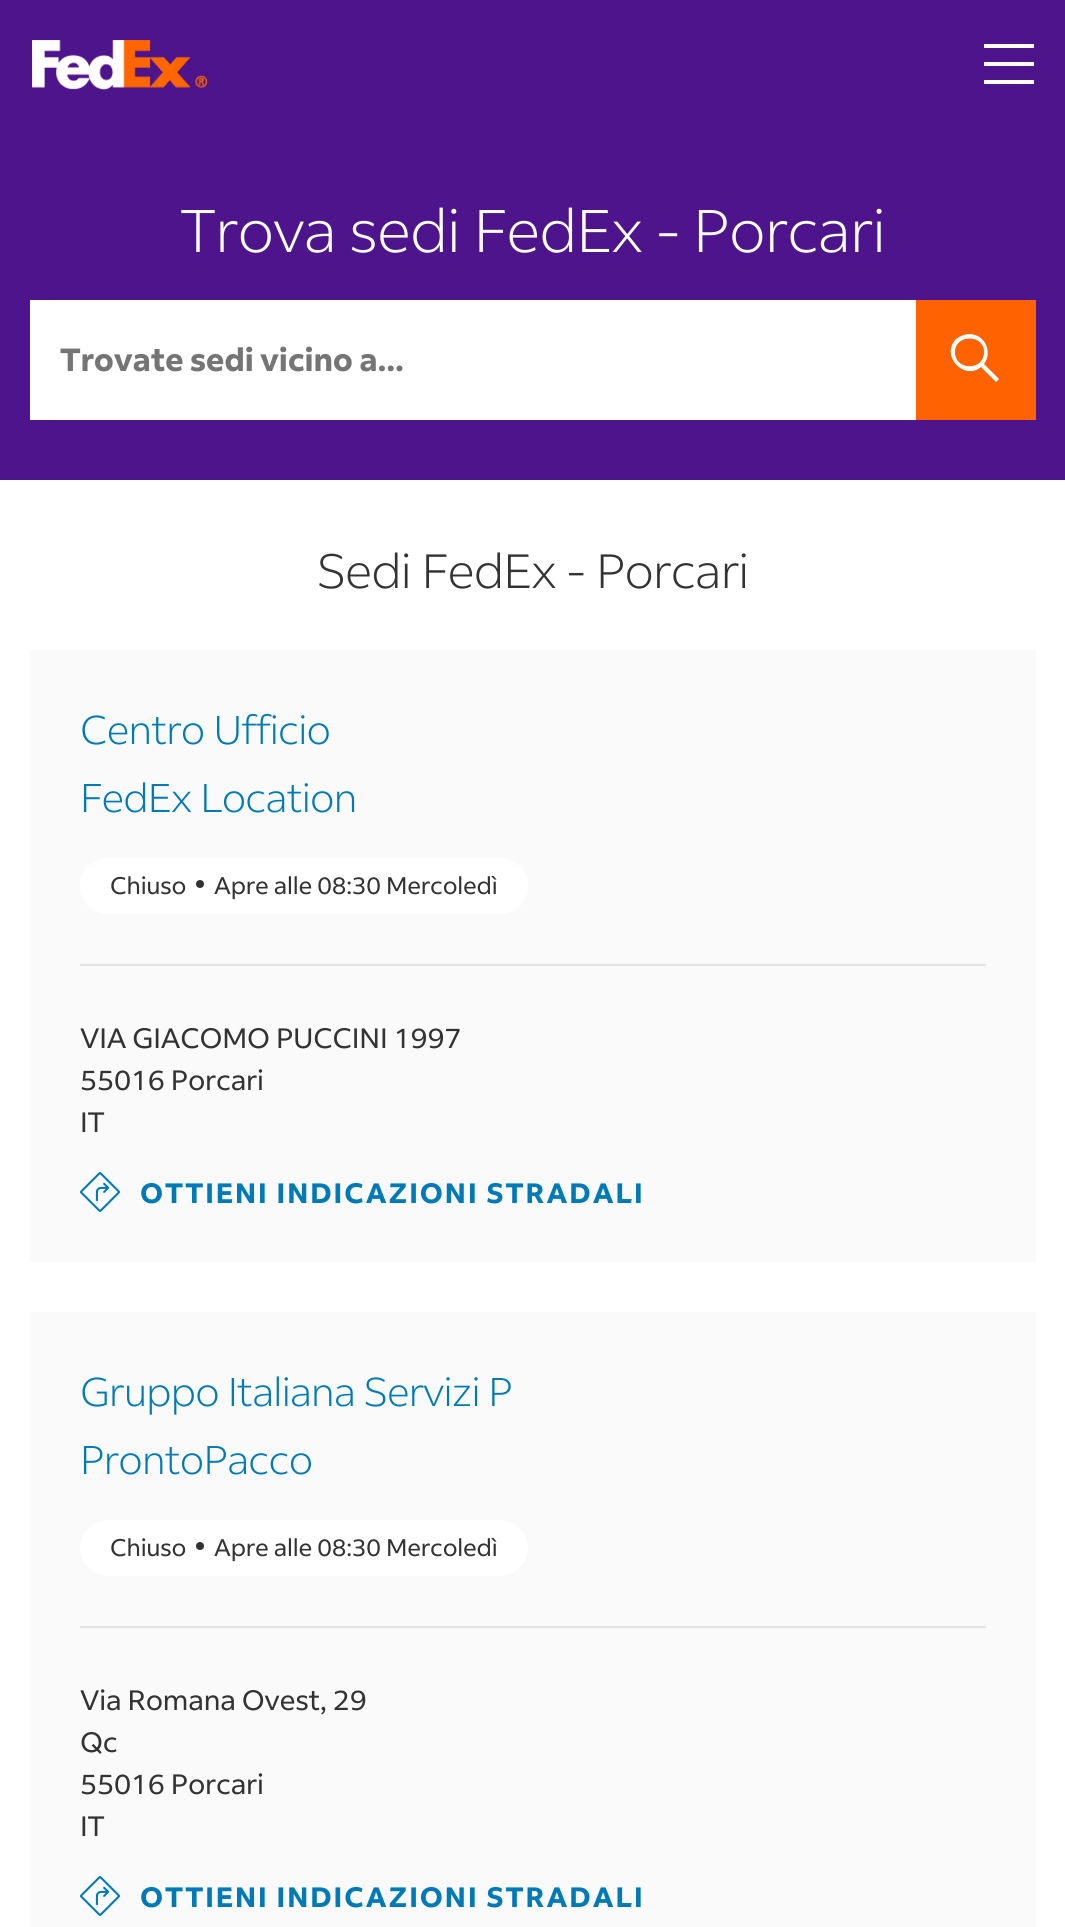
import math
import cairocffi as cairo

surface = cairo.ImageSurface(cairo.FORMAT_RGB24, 1065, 1927)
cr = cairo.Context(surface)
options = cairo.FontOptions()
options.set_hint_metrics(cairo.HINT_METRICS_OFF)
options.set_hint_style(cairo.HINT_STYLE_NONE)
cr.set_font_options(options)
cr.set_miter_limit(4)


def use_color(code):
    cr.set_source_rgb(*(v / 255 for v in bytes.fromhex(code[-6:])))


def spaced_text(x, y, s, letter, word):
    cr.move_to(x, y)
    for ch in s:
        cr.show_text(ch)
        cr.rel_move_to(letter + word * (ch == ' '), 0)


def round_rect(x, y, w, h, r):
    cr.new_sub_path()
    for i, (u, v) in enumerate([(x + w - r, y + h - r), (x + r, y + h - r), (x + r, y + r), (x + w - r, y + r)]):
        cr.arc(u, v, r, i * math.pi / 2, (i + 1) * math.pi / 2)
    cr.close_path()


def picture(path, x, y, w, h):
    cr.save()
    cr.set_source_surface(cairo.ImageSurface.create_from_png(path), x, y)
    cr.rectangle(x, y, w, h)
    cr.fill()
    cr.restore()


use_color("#ffffff")
cr.paint()
use_color("#4d148c")
cr.rectangle(0, 0, 1065, 480)
cr.fill()
picture("img1.png", 32, 40, 176, 50)
use_color("#ffffff")
cr.rectangle(984, 44, 50, 4)
cr.fill()
cr.rectangle(984, 62, 50, 4)
cr.fill()
cr.rectangle(984, 80, 50, 4)
cr.fill()
cr.select_font_face("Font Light")
cr.set_font_size(60)
spaced_text(180, 252, "Trova sedi FedEx - Porcari", -0.8, 0)
cr.rectangle(30, 300, 886, 120)
cr.fill()
cr.select_font_face("Font", cairo.FONT_SLANT_NORMAL, cairo.FONT_WEIGHT_BOLD)
cr.set_font_size(32)
use_color("#757575")
spaced_text(60, 371, "Trovate sedi vicino a...", -0.2, 0)
use_color("#ff6200")
cr.rectangle(916, 300, 120, 120)
cr.fill()
use_color("#ffffff")
cr.set_fill_rule(cairo.FILL_RULE_EVEN_ODD)
cr.new_path()
cr.move_to(955, 352)
cr.curve_to(955, 334, 984, 334, 984, 352)
cr.curve_to(984, 371, 955, 371, 955, 352)
cr.close_path()
cr.move_to(969, 334)
cr.curve_to(965, 334, 960, 336, 956, 339)
cr.curve_to(940, 356, 964, 381, 981, 367)
cr.line_to(996, 382)
cr.line_to(999, 379)
cr.line_to(984, 364)
cr.curve_to(993, 352, 985, 334, 969, 334)
cr.close_path()
cr.fill()
cr.select_font_face("Font Light")
cr.set_font_size(48)
use_color("#333333")
spaced_text(317, 588, "Sedi FedEx - Porcari", -0.8, 0)
use_color("#fafafa")
cr.rectangle(30, 650, 1006, 612)
cr.fill()
use_color("#e3e3e3")
cr.rectangle(80, 964, 906, 2)
cr.fill()
cr.set_font_size(40)
use_color("#007ab7")
spaced_text(80, 744, "Centro Ufficio", -0.8, 0)
spaced_text(80, 812, "FedEx Location", -0.8, 0)
use_color("#ffffff")
round_rect(80, 858, 448, 56, 28)
cr.fill()
cr.select_font_face("Font")
cr.set_font_size(24)
use_color("#333333")
spaced_text(110, 894, "Chiuso", -0.2, 0)
cr.new_path()
cr.arc(200, 884, 4, 0, 2 * math.pi)
cr.fill()
spaced_text(214, 894, "Apre alle 08:30 Mercoledì", -0.2, 0)
cr.set_font_size(28)
spaced_text(80, 1048, "VIA GIACOMO PUCCINI 1997", -0.2, 0)
spaced_text(80, 1090, "55016 Porcari", -0.2, 0)
spaced_text(80, 1132, "IT", -0.2, 0)
picture("img2.png", 80, 1172, 40, 40)
cr.select_font_face("Font", cairo.FONT_SLANT_NORMAL, cairo.FONT_WEIGHT_BOLD)
use_color("#007ab7")
spaced_text(140, 1203, "OTTIENI INDICAZIONI STRADALI", 2, 0)
use_color("#fafafa")
cr.rectangle(30, 1312, 1006, 615)
cr.fill()
use_color("#e3e3e3")
cr.rectangle(80, 1626, 906, 2)
cr.fill()
cr.select_font_face("Font Light")
cr.set_font_size(40)
use_color("#007ab7")
spaced_text(80, 1406, "Gruppo Italiana Servizi P", -0.8, 0)
spaced_text(80, 1474, "ProntoPacco", -0.8, 0)
use_color("#ffffff")
round_rect(80, 1520, 448, 56, 28)
cr.fill()
cr.select_font_face("Font")
cr.set_font_size(24)
use_color("#333333")
spaced_text(110, 1556, "Chiuso", -0.2, 0)
cr.new_path()
cr.arc(200, 1546, 4, 0, 2 * math.pi)
cr.fill()
spaced_text(214, 1556, "Apre alle 08:30 Mercoledì", -0.2, 0)
cr.set_font_size(28)
spaced_text(80, 1710, "Via Romana Ovest, 29", -0.2, 0)
spaced_text(80, 1752, "Qc", -0.2, 0)
spaced_text(80, 1794, "55016 Porcari", -0.2, 0)
spaced_text(80, 1836, "IT", -0.2, 0)
picture("img2.png", 80, 1876, 40, 40)
cr.select_font_face("Font", cairo.FONT_SLANT_NORMAL, cairo.FONT_WEIGHT_BOLD)
use_color("#007ab7")
spaced_text(140, 1907, "OTTIENI INDICAZIONI STRADALI", 2, 0)
surface.write_to_png("result.png")
